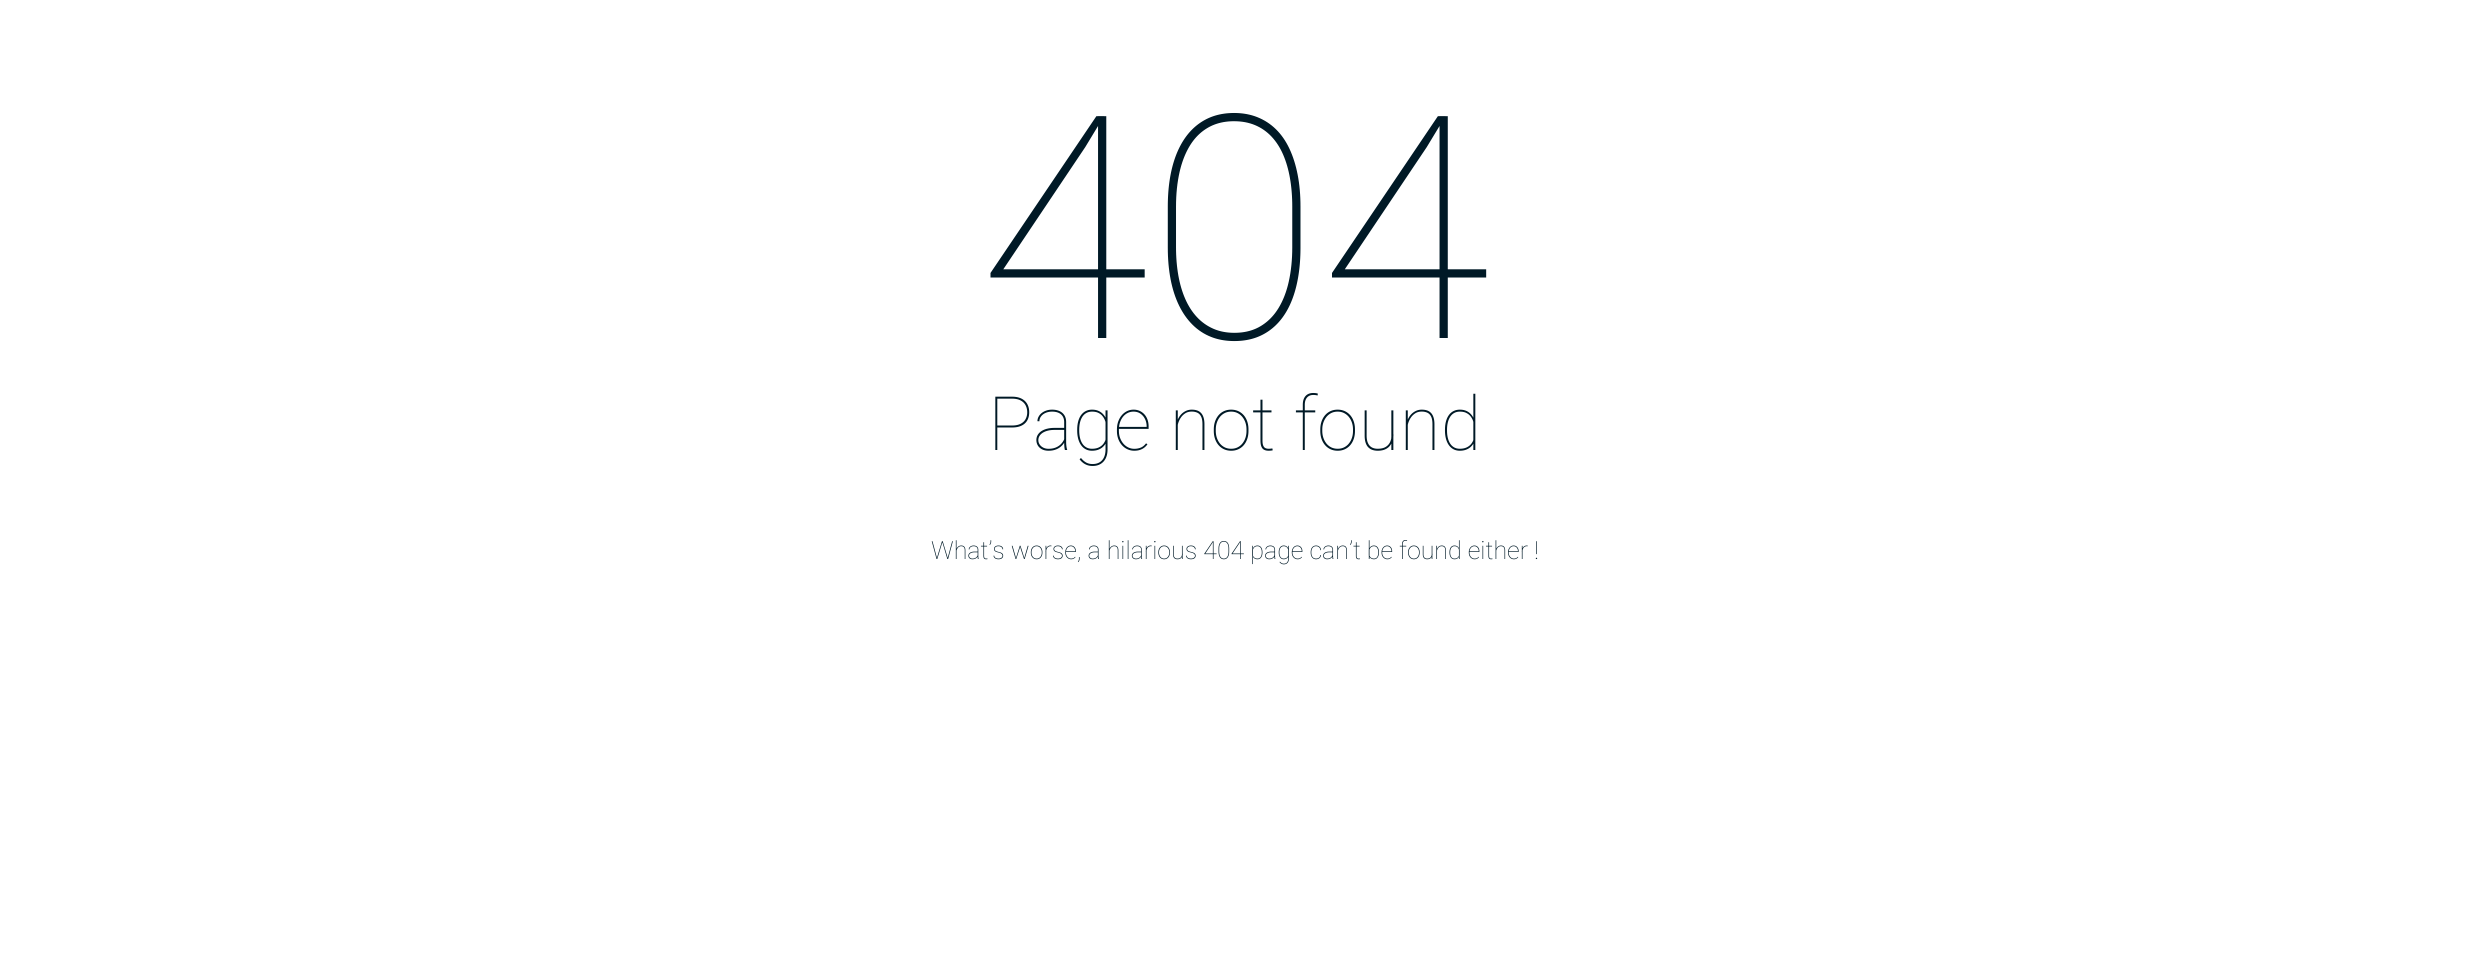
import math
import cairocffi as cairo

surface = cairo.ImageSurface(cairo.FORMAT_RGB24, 2470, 953)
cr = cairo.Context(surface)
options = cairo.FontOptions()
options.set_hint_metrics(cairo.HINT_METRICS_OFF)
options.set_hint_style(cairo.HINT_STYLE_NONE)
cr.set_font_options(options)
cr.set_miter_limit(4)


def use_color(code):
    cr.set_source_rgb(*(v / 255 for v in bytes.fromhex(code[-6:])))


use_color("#ffffff")
cr.paint()
cr.select_font_face("Roboto Thin")
cr.set_font_size(312)
use_color("#001926")
cr.move_to(978, 338)
cr.show_text("404")
cr.set_font_size(75)
cr.move_to(988, 450)
cr.show_text("Page not found")
cr.set_font_size(25)
cr.move_to(931, 559)
cr.show_text("What’s worse, a hilarious 404 page can’t be found either !")
surface.write_to_png("result.png")
